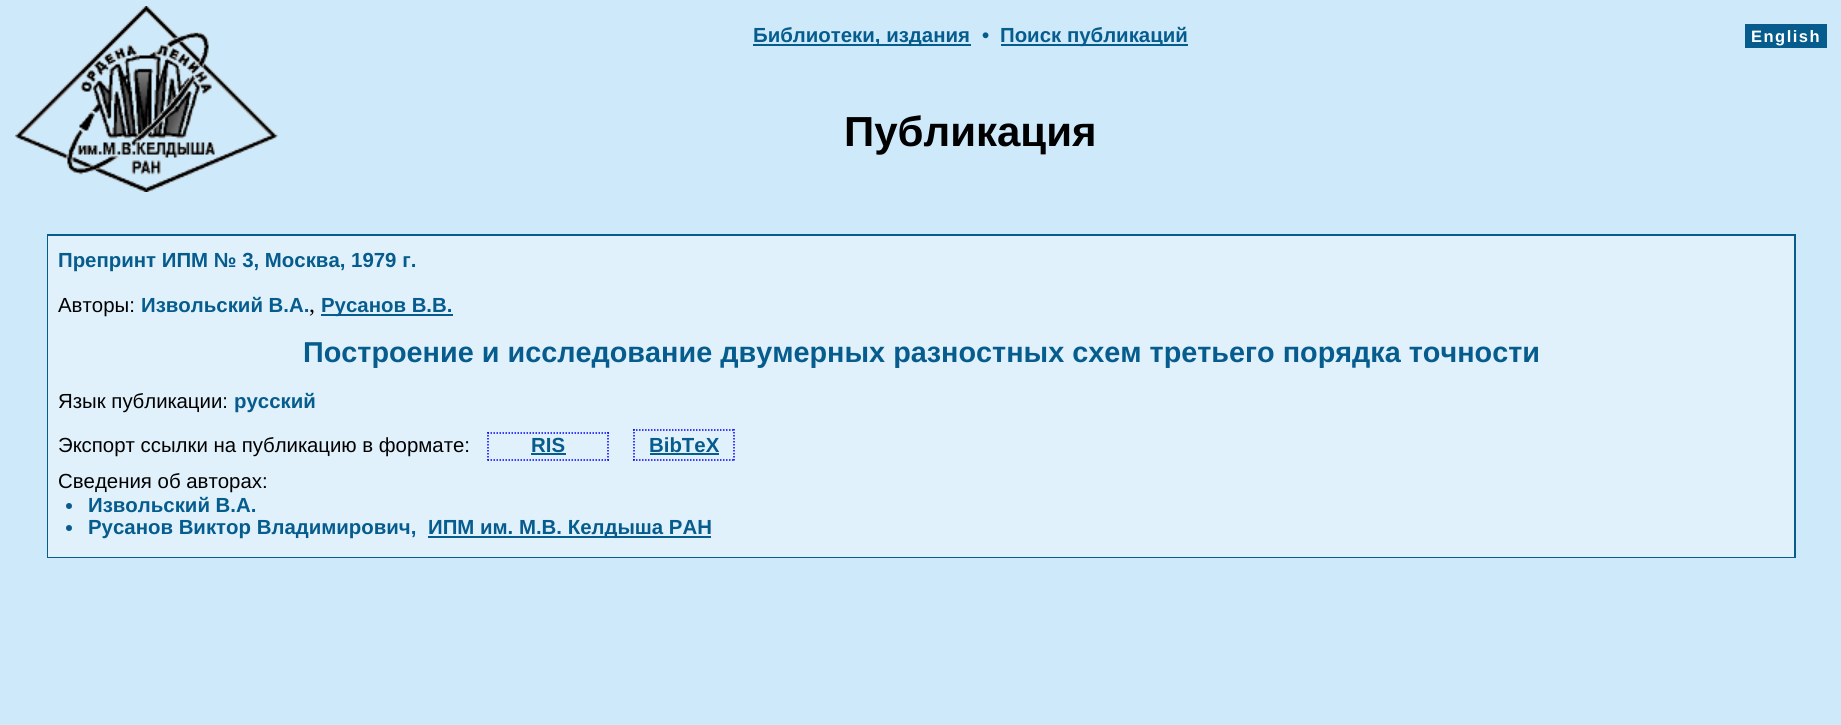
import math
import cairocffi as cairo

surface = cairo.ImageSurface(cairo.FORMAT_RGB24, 1841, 725)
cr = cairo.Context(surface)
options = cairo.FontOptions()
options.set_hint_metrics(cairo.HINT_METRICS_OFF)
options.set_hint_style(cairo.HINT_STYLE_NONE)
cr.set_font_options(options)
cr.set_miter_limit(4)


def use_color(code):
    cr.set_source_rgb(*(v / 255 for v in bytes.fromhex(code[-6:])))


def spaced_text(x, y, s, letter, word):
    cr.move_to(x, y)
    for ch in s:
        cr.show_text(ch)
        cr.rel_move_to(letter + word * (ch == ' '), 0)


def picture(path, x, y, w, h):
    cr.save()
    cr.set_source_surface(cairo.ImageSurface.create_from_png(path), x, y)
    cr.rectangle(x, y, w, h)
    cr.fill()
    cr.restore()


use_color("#ceeafa")
cr.paint()
picture("img1.png", 15, 6, 263, 186)
use_color("#065c8d")
cr.rectangle(753, 44, 218, 2)
cr.fill()
cr.select_font_face("Liberation Sans", cairo.FONT_SLANT_NORMAL, cairo.FONT_WEIGHT_BOLD)
cr.set_font_size(20.4)
cr.move_to(753, 42)
cr.show_text("Библиотеки, издания")
cr.move_to(982, 42)
cr.show_text("•")
cr.rectangle(1001, 44, 187, 2)
cr.fill()
cr.move_to(1000, 42)
cr.show_text("Поиск публикаций")
cr.rectangle(1745, 24, 82, 24)
cr.fill()
cr.set_font_size(16.5)
use_color("#ffffff")
spaced_text(1751, 42, "English", 1.5, 0)
cr.set_font_size(42)
use_color("#000000")
cr.move_to(844, 146)
cr.show_text("Публикация")
use_color("#065c8d")
cr.rectangle(47, 234, 1749, 324)
cr.fill()
use_color("#e0f1fc")
cr.rectangle(48, 236, 1746, 321)
cr.fill()
cr.set_font_size(20.4)
use_color("#065c8d")
cr.move_to(58, 267)
cr.show_text("Препринт ИПМ № 3, Москва, 1979 г.")
cr.select_font_face("Liberation Sans")
use_color("#000000")
cr.move_to(58, 312)
cr.show_text("Авторы:")
cr.select_font_face("Liberation Sans", cairo.FONT_SLANT_NORMAL, cairo.FONT_WEIGHT_BOLD)
use_color("#065c8d")
cr.move_to(141, 312)
cr.show_text("Извольский В.А.")
cr.select_font_face("Liberation Serif")
cr.set_font_size(24)
use_color("#000000")
cr.move_to(309, 312)
cr.show_text(",")
use_color("#065c8d")
cr.rectangle(321, 314, 132, 2)
cr.fill()
cr.select_font_face("Liberation Sans", cairo.FONT_SLANT_NORMAL, cairo.FONT_WEIGHT_BOLD)
cr.set_font_size(20.4)
cr.move_to(321, 312)
cr.show_text("Русанов В.В.")
cr.set_font_size(28.8)
cr.move_to(303, 362)
cr.show_text("Построение и исследование двумерных разностных схем третьего порядка точности")
cr.select_font_face("Liberation Sans")
cr.set_font_size(20.4)
use_color("#000000")
cr.move_to(58, 408)
cr.show_text("Язык публикации:")
cr.select_font_face("Liberation Sans", cairo.FONT_SLANT_NORMAL, cairo.FONT_WEIGHT_BOLD)
use_color("#065c8d")
cr.move_to(234, 408)
cr.show_text("русский")
cr.select_font_face("Liberation Sans")
use_color("#000000")
cr.move_to(58, 452)
cr.show_text("Экспорт ссылки на публикацию в формате:")
cr.select_font_face("Liberation Sans", cairo.FONT_SLANT_NORMAL, cairo.FONT_WEIGHT_BOLD)
use_color("#065c8d")
cr.move_to(531, 452)
cr.show_text("RIS")
cr.new_path()
cr.move_to(487.5, 433)
cr.line_to(609, 433)
use_color("#0000ff")
cr.set_line_width(1.5)
cr.set_dash([1.5, 1.5])
cr.stroke()
cr.new_path()
cr.move_to(608, 432)
cr.line_to(608, 460.5)
cr.stroke()
cr.new_path()
cr.move_to(487.5, 460)
cr.line_to(609, 460)
cr.stroke()
cr.new_path()
cr.move_to(488, 432)
cr.line_to(488, 460.5)
cr.stroke()
use_color("#065c8d")
cr.rectangle(531, 453, 35, 2)
cr.fill()
cr.move_to(649, 452)
cr.show_text("BibTeX")
cr.new_path()
cr.move_to(633, 430)
cr.line_to(735, 430)
use_color("#0000ff")
cr.stroke()
cr.new_path()
cr.move_to(734, 429)
cr.line_to(734, 460.5)
cr.stroke()
cr.new_path()
cr.move_to(633, 460)
cr.line_to(735, 460)
cr.stroke()
cr.new_path()
cr.move_to(634, 429)
cr.line_to(634, 460.5)
cr.stroke()
use_color("#065c8d")
cr.rectangle(650, 453, 69, 2)
cr.fill()
cr.select_font_face("Liberation Sans")
use_color("#000000")
cr.move_to(58, 488)
cr.show_text("Сведения об авторах:")
use_color("#065c8d")
cr.new_path()
cr.arc(69, 506, 3, 0, 2 * math.pi)
cr.fill()
cr.select_font_face("Liberation Sans", cairo.FONT_SLANT_NORMAL, cairo.FONT_WEIGHT_BOLD)
cr.move_to(88, 512)
cr.show_text("Извольский В.А.")
cr.new_path()
cr.arc(69, 528, 3, 0, 2 * math.pi)
cr.fill()
cr.move_to(88, 534)
cr.show_text("Русанов Виктор Владимирович,")
cr.rectangle(428, 536, 283, 2)
cr.fill()
cr.move_to(428, 534)
cr.show_text("ИПМ им. М.В. Келдыша РАН")
surface.write_to_png("result.png")
